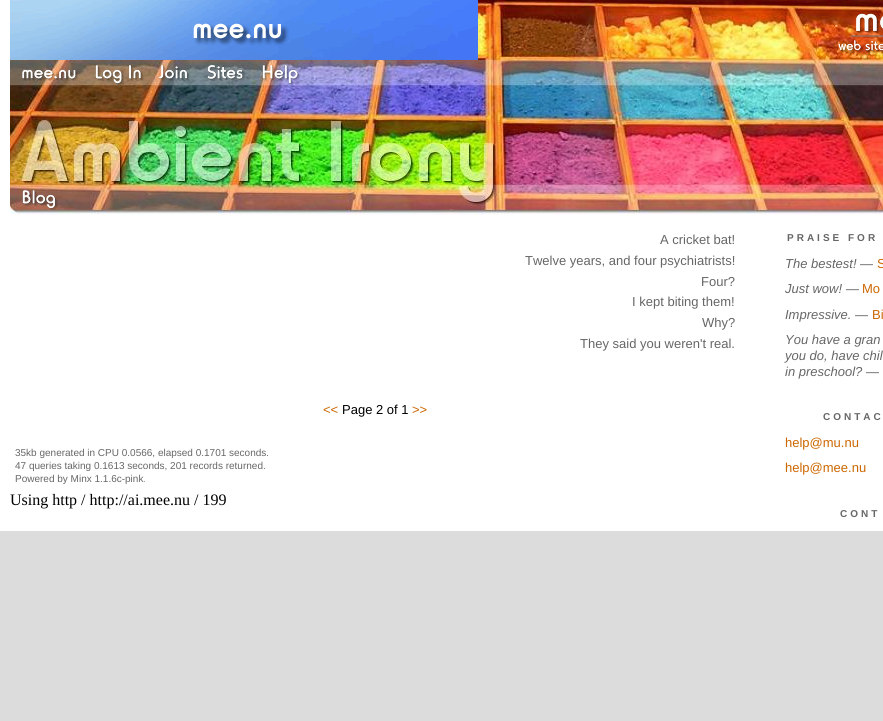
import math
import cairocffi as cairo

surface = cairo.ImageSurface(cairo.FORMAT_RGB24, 883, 721)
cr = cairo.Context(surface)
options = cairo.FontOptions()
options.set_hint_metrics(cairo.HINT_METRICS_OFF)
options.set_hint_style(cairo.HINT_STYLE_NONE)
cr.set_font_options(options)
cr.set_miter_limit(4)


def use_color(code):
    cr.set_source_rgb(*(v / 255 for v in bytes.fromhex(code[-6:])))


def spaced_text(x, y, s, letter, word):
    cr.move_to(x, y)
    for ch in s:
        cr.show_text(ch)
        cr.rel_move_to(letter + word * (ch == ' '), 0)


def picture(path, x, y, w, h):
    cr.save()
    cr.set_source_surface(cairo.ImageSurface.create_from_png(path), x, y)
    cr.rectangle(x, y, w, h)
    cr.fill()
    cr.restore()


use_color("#dcdcdc")
cr.paint()
use_color("#ffffff")
cr.rectangle(0, 0, 883, 531)
cr.fill()
picture("img1.png", 478, 0, 405, 60)
picture("img2.png", 10, 0, 468, 60)
picture("img3.png", 838, 13, 45, 40)
picture("img4.png", 10, 60, 873, 25)
picture("img5.png", 22, 69, 56, 13)
picture("img6.png", 95, 65, 49, 20)
picture("img7.png", 159, 65, 31, 16)
picture("img8.png", 207, 65, 38, 17)
picture("img9.png", 262, 65, 39, 20)
picture("img10.png", 10, 85, 873, 100)
picture("img11.png", 10, 185, 873, 30)
picture("img12.png", 22, 190, 36, 20)
cr.select_font_face("Liberation Sans")
cr.set_font_size(13)
use_color("#666666")
cr.move_to(660, 244)
cr.show_text("A cricket bat!")
cr.move_to(525, 265)
cr.show_text("Twelve years, and four psychiatrists!")
cr.move_to(701, 286)
cr.show_text("Four?")
cr.move_to(632, 306)
cr.show_text("I kept biting them!")
cr.move_to(702, 327)
cr.show_text("Why?")
cr.move_to(580, 348)
cr.show_text("They said you weren't real.")
use_color("#cc6600")
cr.move_to(323, 414)
cr.show_text("<<")
use_color("#000000")
cr.move_to(342, 414)
cr.show_text("Page 2 of 1")
use_color("#cc6600")
cr.move_to(412, 414)
cr.show_text(">>")
cr.set_font_size(10)
use_color("#666666")
cr.move_to(15, 456)
cr.show_text("35kb generated in CPU 0.0566, elapsed 0.1701 seconds.")
cr.move_to(15, 469)
cr.show_text("47 queries taking 0.1613 seconds, 201 records returned.")
cr.move_to(15, 482)
cr.show_text("Powered by Minx 1.1.6c-pink.")
cr.select_font_face("Liberation Sans", cairo.FONT_SLANT_NORMAL, cairo.FONT_WEIGHT_BOLD)
spaced_text(787, 241, "PRAISE FOR", 3, 0)
cr.select_font_face("Liberation Sans", cairo.FONT_SLANT_ITALIC)
cr.set_font_size(13)
cr.move_to(785, 268)
cr.show_text("The bestest!")
cr.select_font_face("Liberation Sans")
cr.move_to(860, 268)
cr.show_text("—")
use_color("#cc6600")
cr.move_to(877, 268)
cr.show_text("S")
cr.select_font_face("Liberation Sans", cairo.FONT_SLANT_ITALIC)
use_color("#666666")
cr.move_to(785, 293)
cr.show_text("Just wow!")
cr.select_font_face("Liberation Sans")
cr.move_to(846, 293)
cr.show_text("—")
use_color("#cc6600")
cr.move_to(862, 293)
cr.show_text("Mo")
cr.select_font_face("Liberation Sans", cairo.FONT_SLANT_ITALIC)
use_color("#666666")
cr.move_to(785, 319)
cr.show_text("Impressive.")
cr.select_font_face("Liberation Sans")
cr.move_to(855, 319)
cr.show_text("—")
use_color("#cc6600")
cr.move_to(872, 319)
cr.show_text("Bi")
cr.select_font_face("Liberation Sans", cairo.FONT_SLANT_ITALIC)
use_color("#666666")
cr.move_to(785, 344)
cr.show_text("You have a gran")
cr.move_to(785, 360)
cr.show_text("you do, have chil")
cr.move_to(785, 376)
cr.show_text("in preschool?")
cr.select_font_face("Liberation Sans")
cr.move_to(866, 376)
cr.show_text("—")
cr.select_font_face("Liberation Sans", cairo.FONT_SLANT_NORMAL, cairo.FONT_WEIGHT_BOLD)
cr.set_font_size(10)
spaced_text(823, 420, "CONTAC", 3, 0)
cr.select_font_face("Liberation Sans")
cr.set_font_size(13)
use_color("#cc6600")
cr.move_to(785, 447)
cr.show_text("help@mu.nu")
cr.move_to(785, 472)
cr.show_text("help@mee.nu")
cr.select_font_face("Liberation Sans", cairo.FONT_SLANT_NORMAL, cairo.FONT_WEIGHT_BOLD)
cr.set_font_size(10)
use_color("#666666")
spaced_text(840, 517, "CONT", 3, 0)
cr.select_font_face("Liberation Serif")
cr.set_font_size(16)
use_color("#000000")
cr.move_to(10, 505)
cr.show_text("Using http / http://ai.mee.nu / 199")
surface.write_to_png("result.png")
